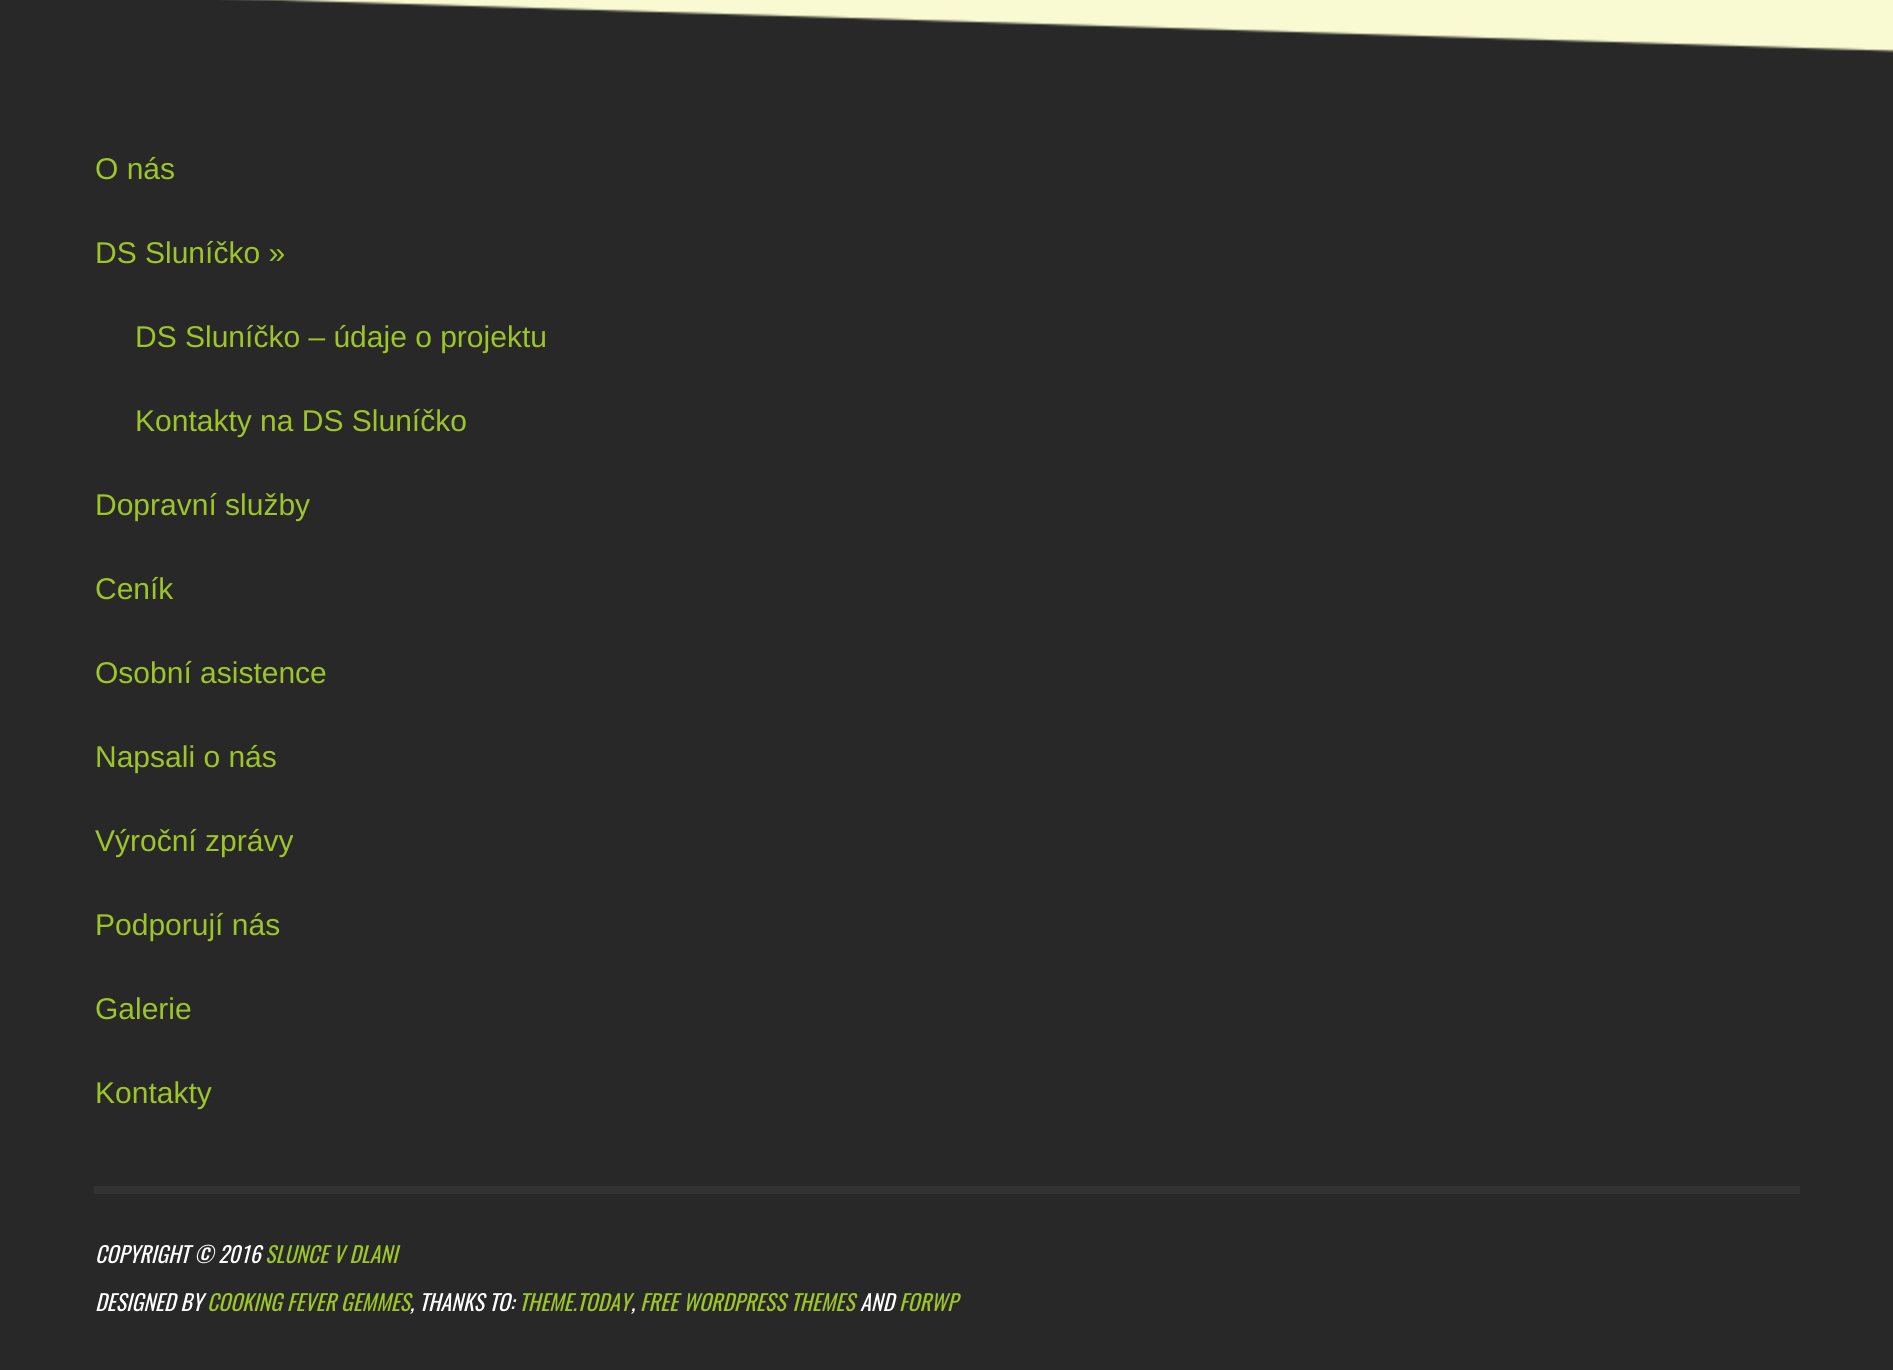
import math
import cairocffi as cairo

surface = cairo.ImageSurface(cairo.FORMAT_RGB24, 1893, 1370)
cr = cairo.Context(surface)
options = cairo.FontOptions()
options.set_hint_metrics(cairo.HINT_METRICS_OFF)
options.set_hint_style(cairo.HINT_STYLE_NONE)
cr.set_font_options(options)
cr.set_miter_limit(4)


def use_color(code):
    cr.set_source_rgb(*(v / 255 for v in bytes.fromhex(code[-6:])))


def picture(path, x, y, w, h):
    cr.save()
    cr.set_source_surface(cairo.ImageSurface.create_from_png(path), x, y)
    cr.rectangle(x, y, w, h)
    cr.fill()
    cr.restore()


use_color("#fafad2")
cr.paint()
use_color("#282828")
cr.rectangle(0, 86, 1893, 1284)
cr.fill()
picture("img1.png", 0, 0, 1893, 86)
cr.select_font_face("Liberation Sans")
cr.set_font_size(30)
use_color("#9dc527")
cr.move_to(95, 179)
cr.show_text("O nás")
cr.move_to(95, 263)
cr.show_text("DS Sluníčko »")
cr.move_to(135, 347)
cr.show_text("DS Sluníčko – údaje o projektu")
cr.move_to(135, 431)
cr.show_text("Kontakty na DS Sluníčko")
cr.move_to(95, 515)
cr.show_text("Dopravní služby")
cr.move_to(95, 599)
cr.show_text("Ceník")
cr.move_to(95, 683)
cr.show_text("Osobní asistence")
cr.move_to(95, 767)
cr.show_text("Napsali o nás")
cr.move_to(95, 851)
cr.show_text("Výroční zprávy")
cr.move_to(95, 935)
cr.show_text("Podporují nás")
cr.move_to(95, 1019)
cr.show_text("Galerie")
cr.move_to(95, 1103)
cr.show_text("Kontakty")
use_color("#333333")
cr.rectangle(94, 1186, 1706, 8)
cr.fill()
cr.select_font_face("Oswald", cairo.FONT_SLANT_ITALIC)
cr.set_font_size(22)
use_color("#ffffff")
cr.move_to(95, 1263)
cr.show_text("COPYRIGHT © 2016")
use_color("#9dc527")
cr.move_to(265, 1263)
cr.show_text("SLUNCE V DLANI")
use_color("#ffffff")
cr.move_to(95, 1311)
cr.show_text("DESIGNED BY")
use_color("#9dc527")
cr.move_to(207, 1311)
cr.show_text("COOKING FEVER GEMMES")
use_color("#ffffff")
cr.move_to(410, 1311)
cr.show_text(", THANKS TO:")
use_color("#9dc527")
cr.move_to(519, 1311)
cr.show_text("THEME.TODAY")
cr.move_to(640, 1311)
cr.show_text("FREE WORDPRESS THEMES")
use_color("#ffffff")
cr.move_to(860, 1311)
cr.show_text("AND")
use_color("#9dc527")
cr.move_to(899, 1311)
cr.show_text("FORWP")
use_color("#ffffff")
cr.move_to(631, 1311)
cr.show_text(",")
surface.write_to_png("result.png")
